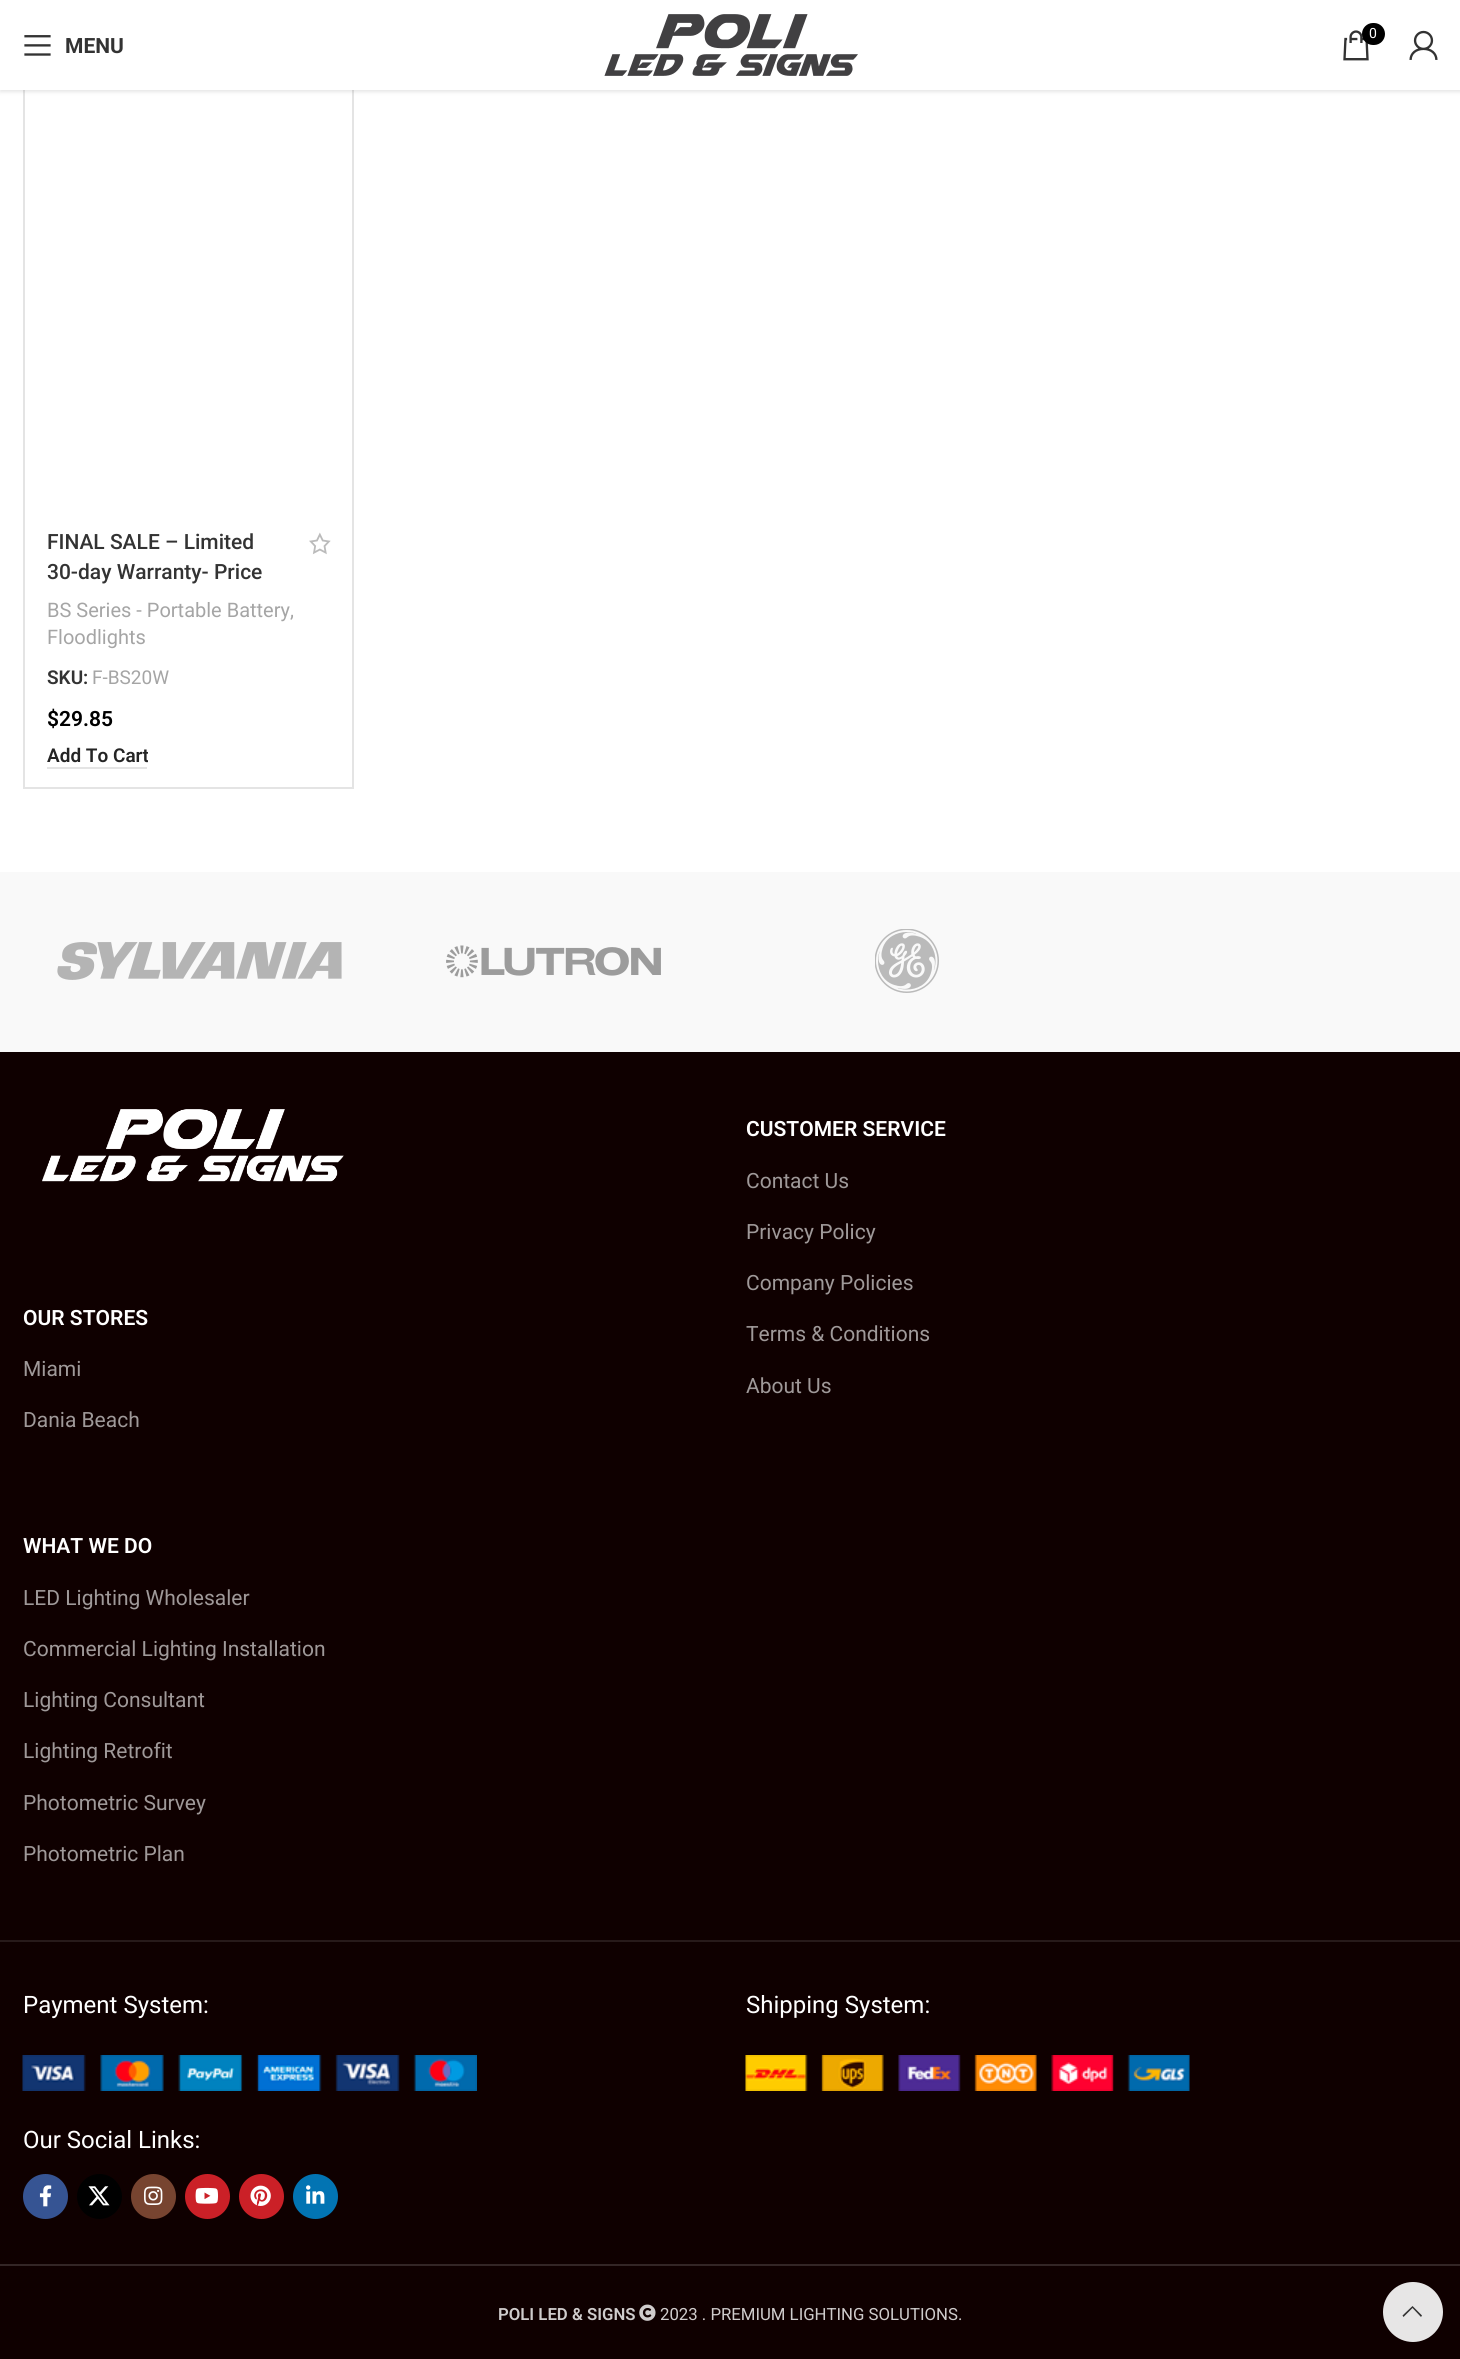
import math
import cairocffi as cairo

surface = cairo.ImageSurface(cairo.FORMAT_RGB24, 1460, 2359)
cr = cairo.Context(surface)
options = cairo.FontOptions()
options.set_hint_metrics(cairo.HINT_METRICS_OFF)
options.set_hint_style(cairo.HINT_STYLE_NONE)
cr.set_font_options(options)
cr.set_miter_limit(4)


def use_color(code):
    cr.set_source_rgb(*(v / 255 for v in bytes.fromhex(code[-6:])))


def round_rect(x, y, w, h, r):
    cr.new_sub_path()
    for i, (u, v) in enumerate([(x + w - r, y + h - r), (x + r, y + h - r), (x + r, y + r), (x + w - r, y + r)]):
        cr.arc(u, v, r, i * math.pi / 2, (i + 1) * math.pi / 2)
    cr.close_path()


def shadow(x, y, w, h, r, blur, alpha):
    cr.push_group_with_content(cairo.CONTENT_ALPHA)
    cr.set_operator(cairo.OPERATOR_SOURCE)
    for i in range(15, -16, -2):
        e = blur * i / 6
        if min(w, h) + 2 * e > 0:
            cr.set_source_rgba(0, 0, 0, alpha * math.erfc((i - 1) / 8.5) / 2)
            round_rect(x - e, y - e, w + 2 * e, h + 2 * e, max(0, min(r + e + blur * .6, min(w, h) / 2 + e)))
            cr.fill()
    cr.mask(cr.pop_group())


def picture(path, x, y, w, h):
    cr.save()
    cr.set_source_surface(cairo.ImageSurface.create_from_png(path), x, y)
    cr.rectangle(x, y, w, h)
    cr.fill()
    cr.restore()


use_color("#ffffff")
cr.paint()
cr.rectangle(24, -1, 329, 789)
use_color("#e4e4e4")
cr.stroke()
use_color("#000000")
shadow(0, 2, 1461, 90, 0, 2, 0.1)
use_color("#ffffff")
cr.rectangle(0, 0, 1460, 90)
cr.fill()
picture("img1.png", 604, 14, 254, 62)
picture("img2.png", 1343, 30, 26, 31)
use_color("#000000")
round_rect(1362, 23, 23, 22, 11)
cr.fill()
cr.select_font_face("Roboto")
cr.set_font_size(14)
use_color("#ffffff")
cr.move_to(1369, 38)
cr.show_text("0")
picture("img3.png", 1409, 30, 29, 30)
picture("img4.png", 24, 35, 27, 21)
cr.select_font_face("Roboto", cairo.FONT_SLANT_NORMAL, cairo.FONT_WEIGHT_BOLD)
cr.set_font_size(21)
use_color("#333333")
cr.move_to(65, 53)
cr.show_text("MENU")
cr.select_font_face("Roboto Medium")
cr.move_to(47, 549)
cr.show_text("FINAL SALE – Limited")
cr.move_to(47, 579)
cr.show_text("30-day Warranty- Price")
picture("img5.png", 309, 532, 22, 23)
cr.select_font_face("Roboto")
cr.set_font_size(20)
use_color("#a5a5a5")
cr.move_to(47, 617)
cr.show_text("BS Series - Portable Battery,")
cr.move_to(47, 644)
cr.show_text("Floodlights")
cr.select_font_face("Roboto SemiBold")
cr.set_font_size(19)
use_color("#333333")
cr.move_to(47, 684)
cr.show_text("SKU:")
cr.select_font_face("Roboto")
use_color("#a5a5a5")
cr.move_to(92, 684)
cr.show_text("F-BS20W")
cr.select_font_face("Roboto SemiBold")
cr.set_font_size(21)
use_color("#000000")
cr.move_to(47, 726)
cr.show_text("$29.85")
use_color("#e4e4e4")
cr.rectangle(47, 767, 100, 2)
cr.fill()
cr.set_font_size(19)
use_color("#242424")
cr.move_to(47, 762)
cr.show_text("Add To Cart")
use_color("#f9f9f9")
cr.rectangle(0, 872, 1460, 180)
cr.fill()
picture("img6.png", 57, 942, 285, 38)
picture("img7.png", 446, 945, 215, 33)
picture("img8.png", 875, 929, 64, 64)
use_color("#0f0000")
cr.rectangle(0, 1052, 1460, 1307)
cr.fill()
use_color("#271a1a")
cr.rectangle(0, 1940, 1460, 2)
cr.fill()
picture("img9.png", 42, 1109, 302, 73)
cr.set_font_size(21)
use_color("#ffffff")
cr.move_to(23, 1325)
cr.show_text("OUR STORES")
cr.select_font_face("Roboto")
use_color("#9f9999")
cr.move_to(23, 1376)
cr.show_text("Miami")
cr.move_to(23, 1427)
cr.show_text("Dania Beach")
cr.select_font_face("Roboto SemiBold")
use_color("#ffffff")
cr.move_to(746, 1136)
cr.show_text("CUSTOMER SERVICE")
cr.select_font_face("Roboto")
use_color("#9f9999")
cr.move_to(746, 1188)
cr.show_text("Contact Us")
cr.move_to(746, 1239)
cr.show_text("Privacy Policy")
cr.move_to(746, 1290)
cr.show_text("Company Policies")
cr.move_to(746, 1341)
cr.show_text("Terms & Conditions")
cr.move_to(746, 1393)
cr.show_text("About Us")
cr.select_font_face("Roboto SemiBold")
use_color("#ffffff")
cr.move_to(23, 1553)
cr.show_text("WHAT WE DO")
cr.select_font_face("Roboto")
use_color("#9f9999")
cr.move_to(23, 1605)
cr.show_text("LED Lighting Wholesaler")
cr.move_to(23, 1656)
cr.show_text("Commercial Lighting Installation")
cr.move_to(23, 1707)
cr.show_text("Lighting Consultant")
cr.move_to(23, 1758)
cr.show_text("Lighting Retrofit")
cr.move_to(23, 1810)
cr.show_text("Photometric Survey")
cr.move_to(23, 1861)
cr.show_text("Photometric Plan")
cr.set_font_size(24)
use_color("#ffffff")
cr.move_to(23, 2013)
cr.show_text("Payment System:")
picture("img10.png", 22, 2055, 455, 36)
cr.move_to(746, 2013)
cr.show_text("Shipping System:")
picture("img11.png", 745, 2055, 445, 36)
cr.move_to(23, 2148)
cr.show_text("Our Social Links:")
use_color("#365493")
cr.new_path()
cr.arc(45.5, 2196.5, 22.5, 0, 2 * math.pi)
cr.fill()
picture("img12.png", 39, 2185, 13, 22)
use_color("#000000")
cr.arc(99.5, 2196.5, 22.5, 0, 2 * math.pi)
cr.fill()
picture("img13.png", 88, 2186, 22, 20)
use_color("#774430")
cr.arc(153.5, 2196.5, 22.5, 0, 2 * math.pi)
cr.fill()
picture("img14.png", 144, 2186, 19, 19)
use_color("#cb2027")
cr.arc(207.5, 2196.5, 22.5, 0, 2 * math.pi)
cr.fill()
picture("img15.png", 195, 2187, 23, 17)
cr.arc(261.5, 2196.5, 22.5, 0, 2 * math.pi)
cr.fill()
picture("img16.png", 250, 2185, 21, 21)
use_color("#0274b3")
cr.arc(315.5, 2196.5, 22.5, 0, 2 * math.pi)
cr.fill()
picture("img17.png", 306, 2185, 19, 19)
use_color("#332626")
cr.rectangle(0, 2264, 1460, 2)
cr.fill()
cr.select_font_face("Roboto SemiBold")
cr.set_font_size(16.75)
use_color("#cfcccc")
cr.move_to(498, 2320)
cr.show_text("POLI LED & SIGNS")
picture("img18.png", 639, 2304, 17, 17)
cr.select_font_face("Roboto")
cr.move_to(660, 2320)
cr.show_text("2023 . PREMIUM LIGHTING SOLUTIONS.")
use_color("#e7e6e6")
cr.new_path()
cr.arc(1413, 2312, 30, 0, 2 * math.pi)
cr.fill()
use_color("#333333")
cr.new_path()
cr.move_to(1421, 2317)
cr.line_to(1422, 2315.5)
cr.line_to(1412.5, 2306)
cr.line_to(1402.5, 2315.5)
cr.line_to(1403.5, 2317)
cr.line_to(1412.5, 2308)
cr.close_path()
cr.fill()
surface.write_to_png("result.png")
